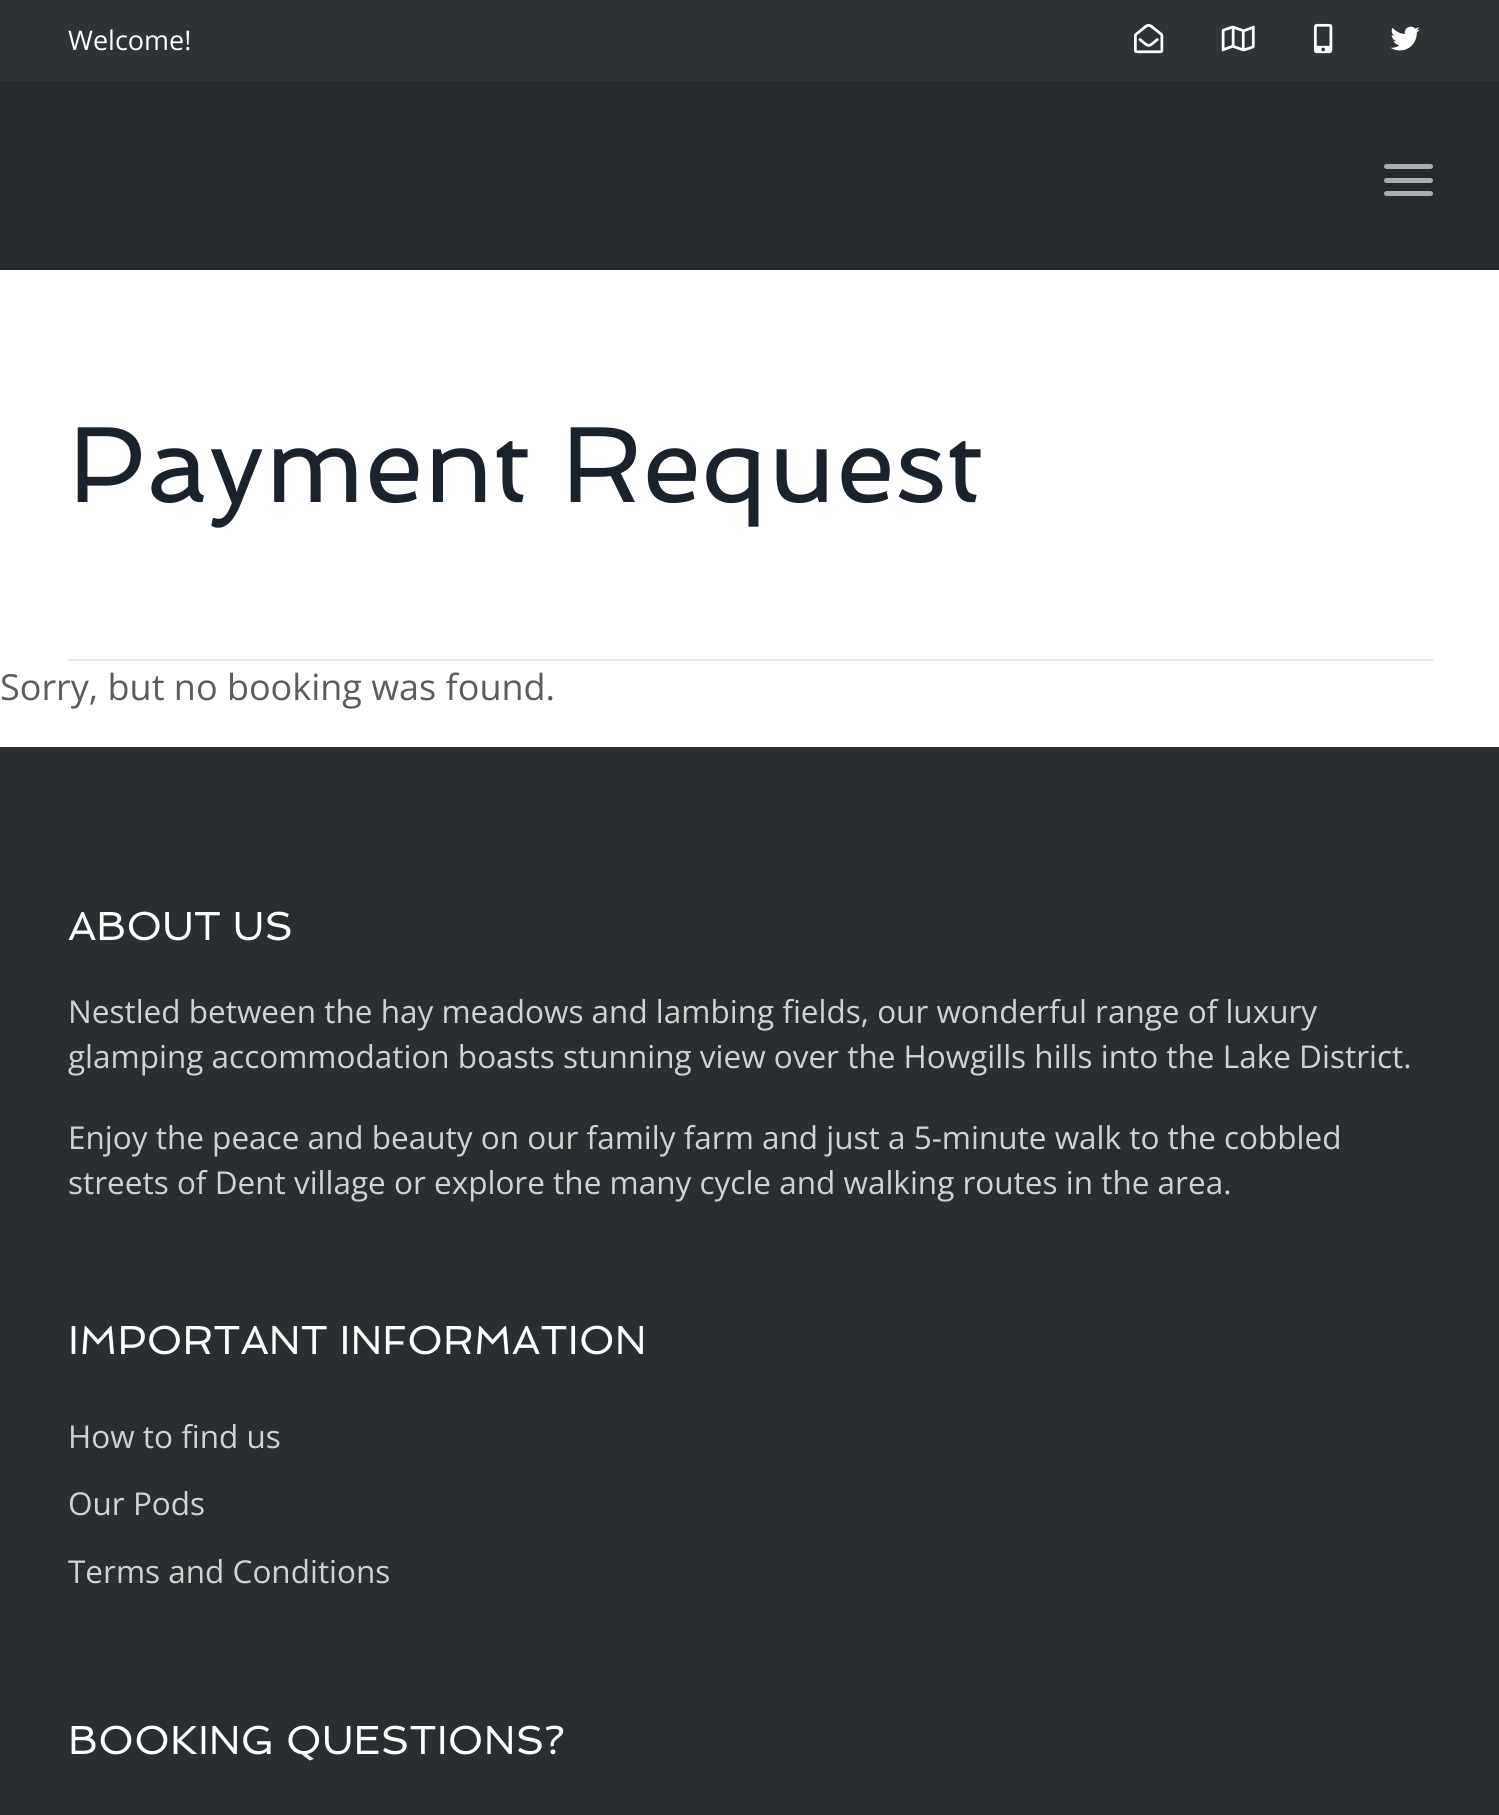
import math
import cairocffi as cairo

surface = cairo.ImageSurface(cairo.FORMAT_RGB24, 1499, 1815)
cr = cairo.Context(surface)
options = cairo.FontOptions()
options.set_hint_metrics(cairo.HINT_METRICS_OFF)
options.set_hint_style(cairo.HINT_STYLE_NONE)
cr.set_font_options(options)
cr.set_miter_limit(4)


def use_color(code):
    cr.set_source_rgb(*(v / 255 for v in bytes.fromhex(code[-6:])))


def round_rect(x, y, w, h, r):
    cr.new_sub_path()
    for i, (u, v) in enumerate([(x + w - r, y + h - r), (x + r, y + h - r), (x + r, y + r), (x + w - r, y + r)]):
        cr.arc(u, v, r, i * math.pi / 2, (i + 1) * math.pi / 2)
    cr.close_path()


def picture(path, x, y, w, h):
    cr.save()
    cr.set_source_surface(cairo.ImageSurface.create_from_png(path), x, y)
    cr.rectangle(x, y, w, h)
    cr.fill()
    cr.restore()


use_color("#ffffff")
cr.paint()
use_color("#252b2d")
cr.rectangle(0, 81, 1499, 189)
cr.fill()
use_color("#2e3335")
cr.rectangle(0, 0, 1499, 81)
cr.fill()
cr.select_font_face("Open Sans")
cr.set_font_size(27)
use_color("#ffffff")
cr.move_to(68, 50)
cr.show_text("Welcome!")
picture("img1.png", 1134, 23, 30, 31)
picture("img2.png", 1221, 25, 34, 27)
picture("img3.png", 1314, 23, 19, 31)
picture("img4.png", 1390, 26, 30, 25)
use_color("#acacac")
round_rect(1384, 164, 49, 5, 2.5)
cr.fill()
round_rect(1384, 178, 49, 5, 2.5)
cr.fill()
round_rect(1384, 191, 49, 5, 2.5)
cr.fill()
use_color("#e6e6e6")
cr.rectangle(68, 659, 1365, 2)
cr.fill()
cr.select_font_face("Spinnaker")
cr.set_font_size(108)
use_color("#1a222c")
cr.move_to(68, 502)
cr.show_text("Payment Request")
cr.select_font_face("Open Sans")
cr.set_font_size(36)
use_color("#5c5c5c")
cr.move_to(0, 700)
cr.show_text("Sorry, but no booking was found.")
use_color("#292e31")
cr.rectangle(0, 747, 1499, 1068)
cr.fill()
cr.select_font_face("Spinnaker")
cr.set_font_size(40.5)
use_color("#ffffff")
cr.move_to(68, 940)
cr.show_text("ABOUT US")
cr.select_font_face("Open Sans")
cr.set_font_size(31.5)
use_color("#d2d2d2")
cr.move_to(68, 1023)
cr.show_text("Nestled between the hay meadows and lambing fields, our wonderful range of luxury")
cr.move_to(68, 1068)
cr.show_text("glamping accommodation boasts stunning view over the Howgills hills into the Lake District.")
cr.move_to(68, 1149)
cr.show_text("Enjoy the peace and beauty on our family farm and just a 5-minute walk to the cobbled")
cr.move_to(68, 1194)
cr.show_text("streets of Dent village or explore the many cycle and walking routes in the area.")
cr.select_font_face("Spinnaker")
cr.set_font_size(40.5)
use_color("#ffffff")
cr.move_to(68, 1354)
cr.show_text("IMPORTANT INFORMATION")
cr.select_font_face("Open Sans")
cr.set_font_size(31.5)
use_color("#d2d2d2")
cr.move_to(68, 1448)
cr.show_text("How to find us")
cr.move_to(68, 1515)
cr.show_text("Our Pods")
cr.move_to(68, 1583)
cr.show_text("Terms and Conditions")
cr.select_font_face("Spinnaker")
cr.set_font_size(40.5)
use_color("#ffffff")
cr.move_to(68, 1754)
cr.show_text("BOOKING QUESTIONS?")
surface.write_to_png("result.png")
